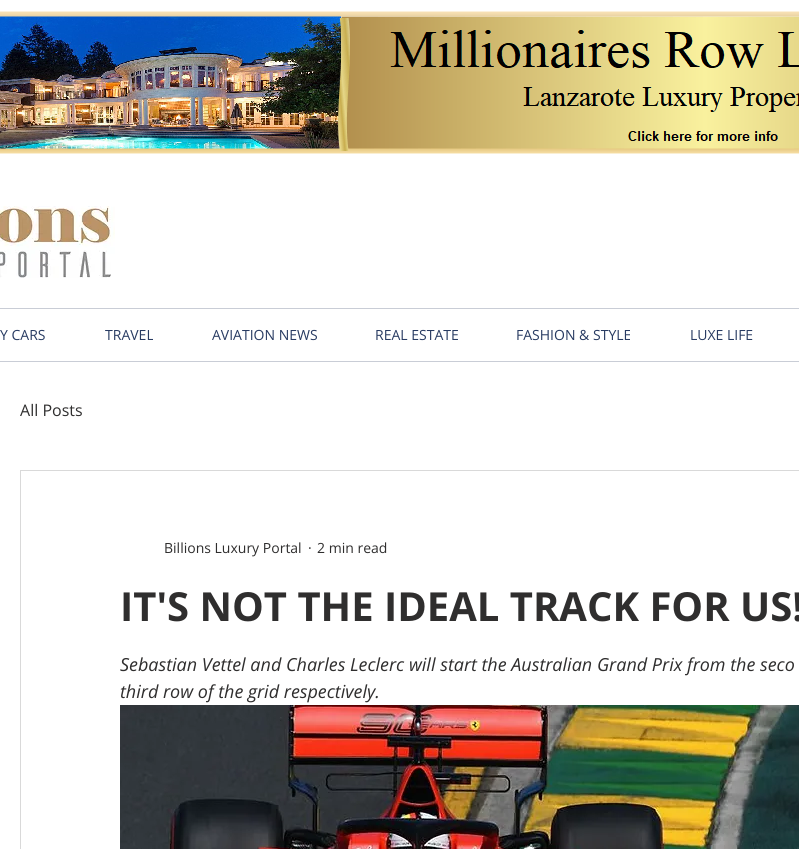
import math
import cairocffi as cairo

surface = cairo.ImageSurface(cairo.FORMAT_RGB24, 799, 849)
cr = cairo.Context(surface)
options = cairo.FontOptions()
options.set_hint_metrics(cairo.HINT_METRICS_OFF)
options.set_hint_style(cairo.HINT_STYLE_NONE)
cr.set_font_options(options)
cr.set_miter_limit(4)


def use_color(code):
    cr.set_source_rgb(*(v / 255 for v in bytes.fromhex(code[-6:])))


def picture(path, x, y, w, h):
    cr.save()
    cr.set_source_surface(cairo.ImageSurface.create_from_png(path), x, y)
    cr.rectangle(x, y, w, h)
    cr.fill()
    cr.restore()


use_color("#ffffff")
cr.paint()
picture("img1.png", 0, 11, 799, 143)
picture("img2.png", 0, 206, 115, 72)
use_color("#c9cdd6")
cr.rectangle(0, 308, 799, 1)
cr.fill()
cr.select_font_face("Open Sans")
cr.set_font_size(14)
use_color("#283b62")
cr.move_to(0, 340)
cr.show_text("Y CARS")
cr.move_to(105, 340)
cr.show_text("TRAVEL")
cr.move_to(212, 340)
cr.show_text("AVIATION NEWS")
cr.move_to(375, 340)
cr.show_text("REAL ESTATE")
cr.move_to(516, 340)
cr.show_text("FASHION & STYLE")
cr.move_to(690, 340)
cr.show_text("LUXE LIFE")
use_color("#c9cdd6")
cr.rectangle(0, 361, 799, 1)
cr.fill()
cr.set_font_size(16)
use_color("#2f2e2e")
cr.move_to(20, 416)
cr.show_text("All Posts")
cr.rectangle(20.5, 470.5, 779, 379)
use_color("#d9d9d9")
cr.set_line_width(1)
cr.stroke()
cr.set_font_size(14)
use_color("#2f2e2e")
cr.move_to(164, 553)
cr.show_text("Billions Luxury Portal")
cr.move_to(308, 553)
cr.show_text("·")
cr.move_to(317, 553)
cr.show_text("2 min read")
cr.select_font_face("Open Sans", cairo.FONT_SLANT_NORMAL, cairo.FONT_WEIGHT_BOLD)
cr.set_font_size(40)
cr.move_to(120, 621)
cr.show_text("IT'S NOT THE IDEAL TRACK FOR US!")
cr.select_font_face("Open Sans", cairo.FONT_SLANT_ITALIC)
cr.set_font_size(18)
cr.move_to(120, 671)
cr.show_text("Sebastian Vettel and Charles Leclerc will start the Australian Grand Prix from the seco")
cr.move_to(120, 698)
cr.show_text("third row of the grid respectively.")
picture("img3.png", 120, 705, 679, 144)
surface.write_to_png("result.png")
